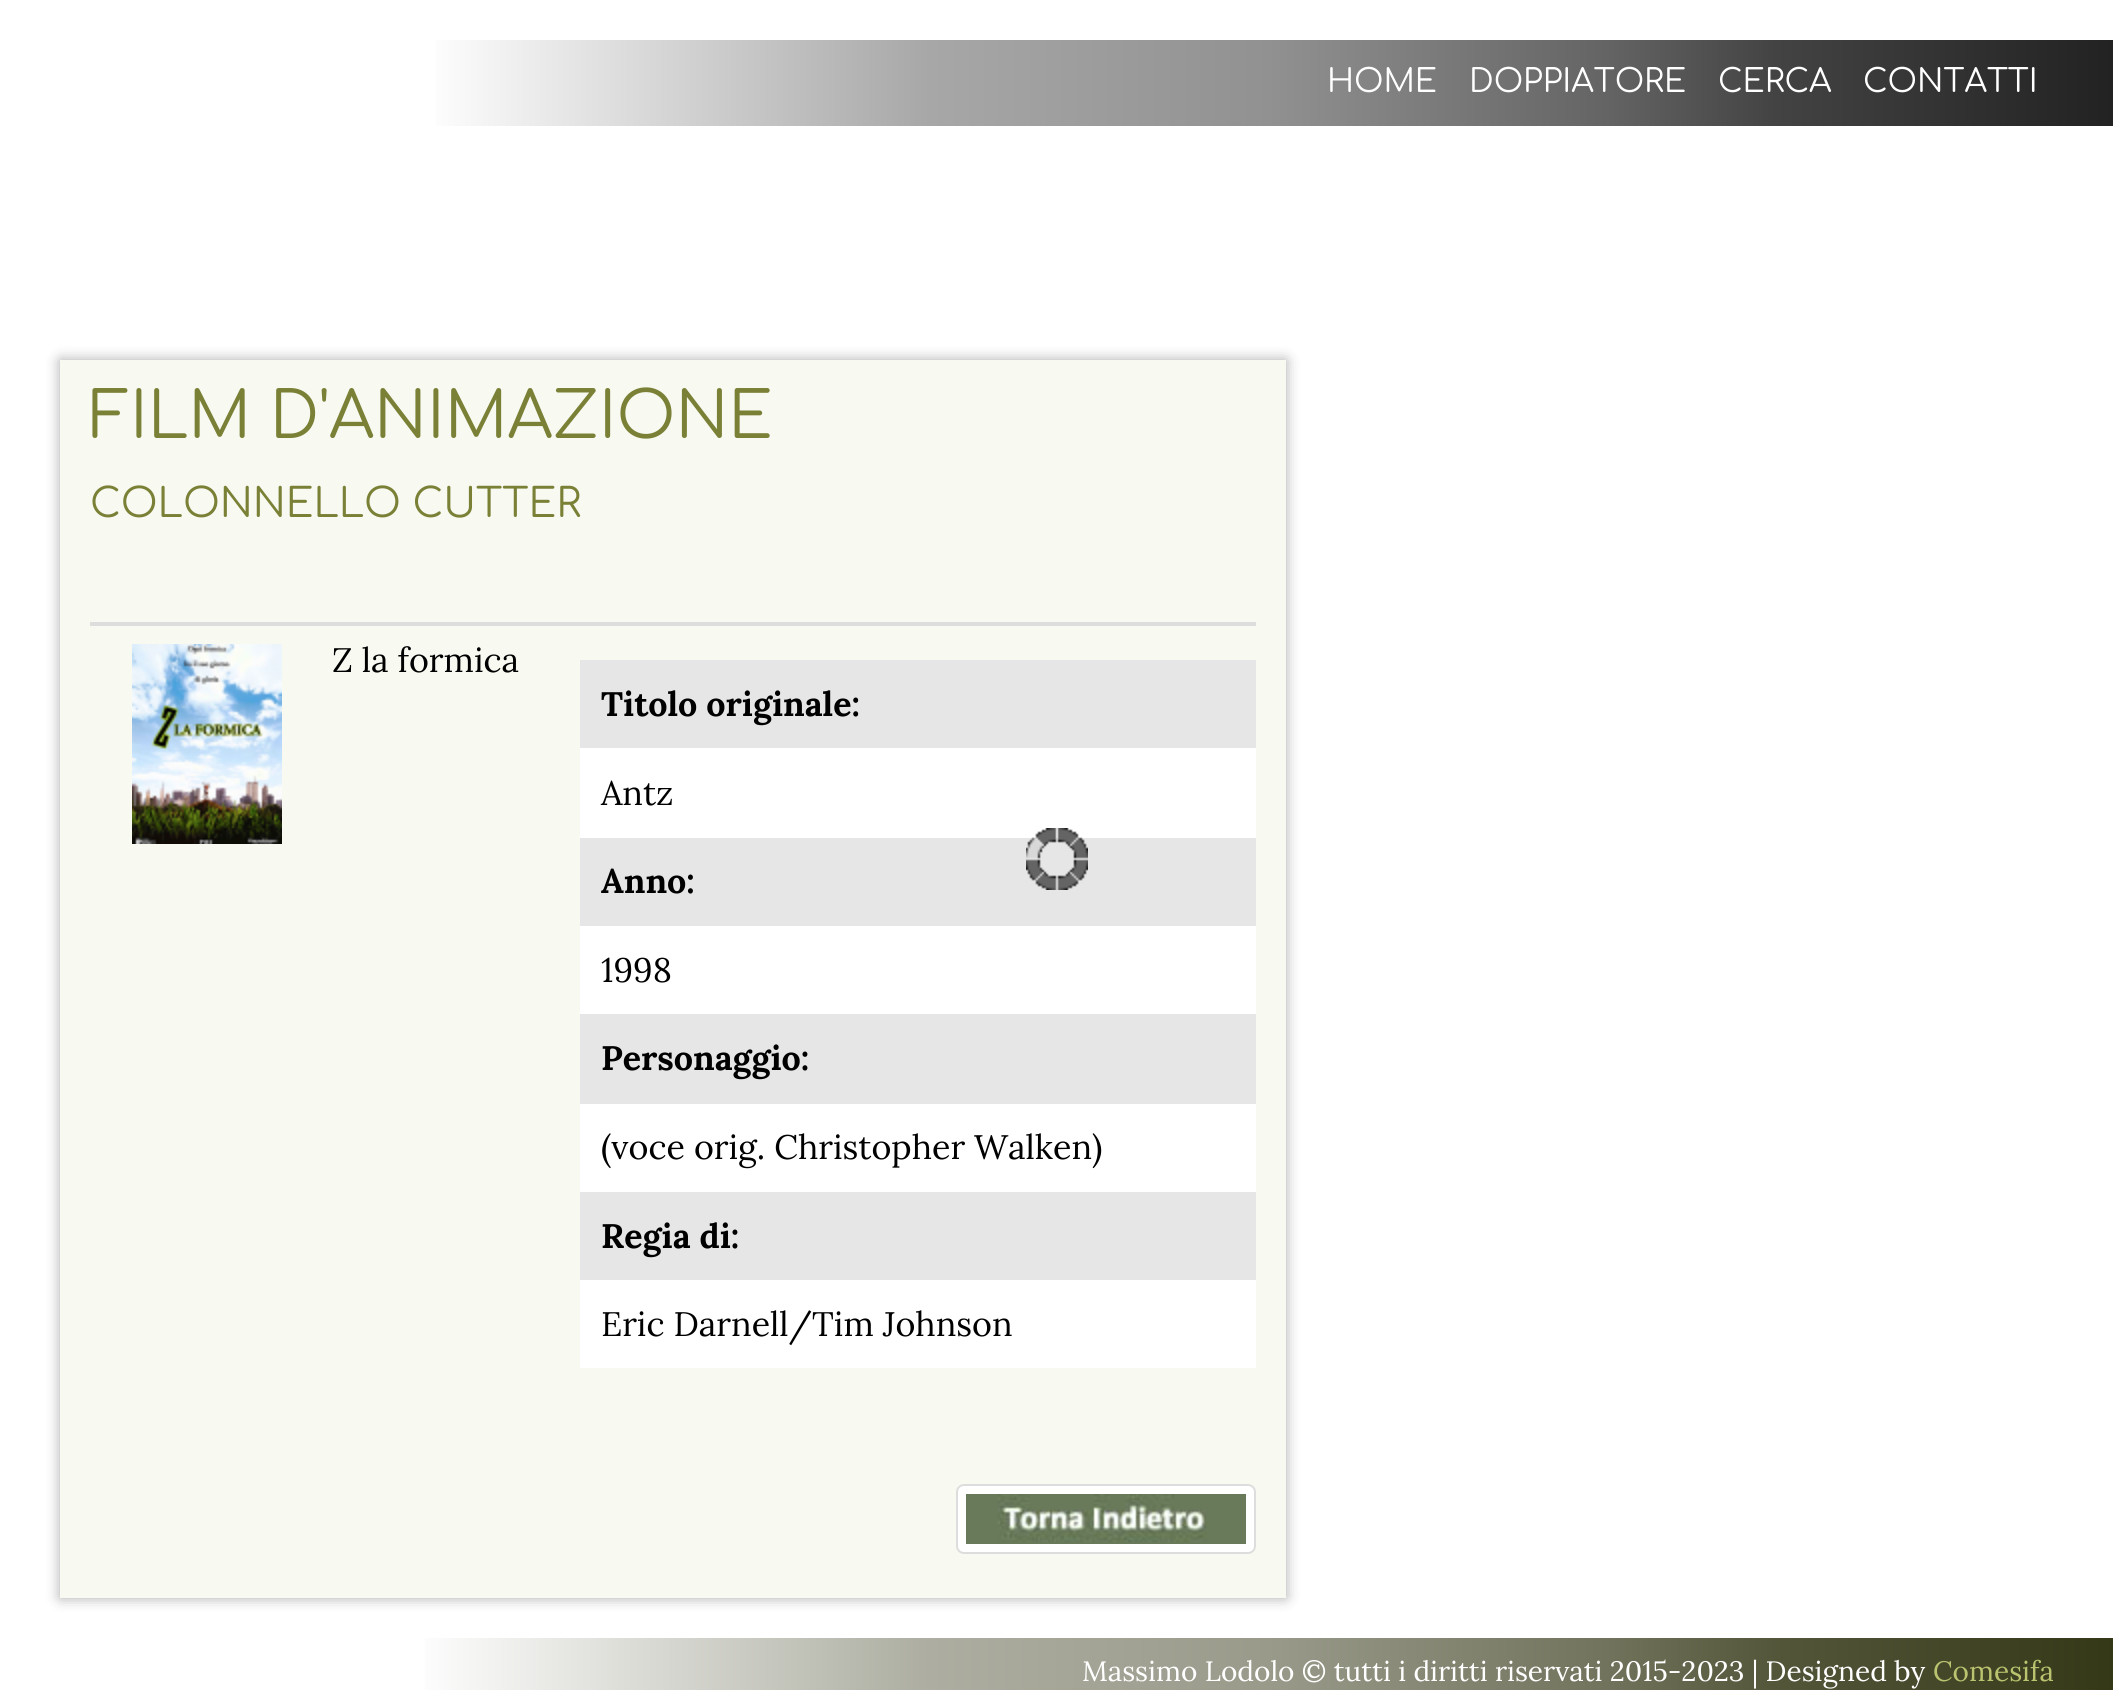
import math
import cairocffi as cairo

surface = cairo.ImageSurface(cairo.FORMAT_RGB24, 2113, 1690)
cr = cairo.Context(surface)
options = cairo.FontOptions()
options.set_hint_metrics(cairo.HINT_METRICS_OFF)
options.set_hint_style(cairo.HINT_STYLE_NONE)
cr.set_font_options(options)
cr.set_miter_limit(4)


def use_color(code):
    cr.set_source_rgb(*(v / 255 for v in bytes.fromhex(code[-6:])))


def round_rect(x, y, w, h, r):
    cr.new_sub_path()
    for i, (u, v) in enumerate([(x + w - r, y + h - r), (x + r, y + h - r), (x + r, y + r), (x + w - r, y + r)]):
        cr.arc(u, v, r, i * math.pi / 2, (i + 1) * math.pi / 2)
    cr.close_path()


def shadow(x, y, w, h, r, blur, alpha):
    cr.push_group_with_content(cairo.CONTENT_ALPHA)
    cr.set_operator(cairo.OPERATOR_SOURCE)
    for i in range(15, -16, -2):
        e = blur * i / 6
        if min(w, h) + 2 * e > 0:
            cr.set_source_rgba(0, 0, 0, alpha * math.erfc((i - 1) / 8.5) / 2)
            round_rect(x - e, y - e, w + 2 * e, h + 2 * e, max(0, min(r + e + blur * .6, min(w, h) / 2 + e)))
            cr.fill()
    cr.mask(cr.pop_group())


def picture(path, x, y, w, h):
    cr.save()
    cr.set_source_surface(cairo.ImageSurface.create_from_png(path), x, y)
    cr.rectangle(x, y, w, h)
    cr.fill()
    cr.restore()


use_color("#ffffff")
cr.paint()
gradient = cairo.LinearGradient(422, 83, 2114, 83)
gradient.add_color_stop_rgba(0, 1, 1, 1, 1)
gradient.add_color_stop_rgba(0.3, 0.655, 0.655, 0.655, 1)
gradient.add_color_stop_rgba(0.5, 0.569, 0.569, 0.569, 1)
gradient.add_color_stop_rgba(0.7, 0.392, 0.392, 0.392, 1)
gradient.add_color_stop_rgba(0.8, 0.263, 0.263, 0.263, 1)
gradient.add_color_stop_rgba(1, 0.133, 0.133, 0.133, 1)
cr.set_source(gradient)
cr.rectangle(436, 40, 1677, 86)
cr.fill()
cr.select_font_face("Comfortaa")
cr.set_font_size(32)
use_color("#ffffff")
cr.move_to(1327, 92)
cr.show_text("HOME")
cr.move_to(1469, 92)
cr.show_text("DOPPIATORE")
cr.move_to(1718, 92)
cr.show_text("CERCA")
cr.move_to(1863, 92)
cr.show_text("CONTATTI")
use_color("#000000")
shadow(60, 360, 1226, 1238, 0, 7, 0.33)
use_color("#f8f9f1")
cr.rectangle(60, 360, 1226, 1238)
cr.fill()
cr.set_font_size(64)
use_color("#7a8136")
cr.move_to(90, 438)
cr.show_text("FILM D'ANIMAZIONE")
cr.set_font_size(40)
cr.move_to(90, 517)
cr.show_text("COLONNELLO CUTTER")
use_color("#dddddd")
cr.rectangle(90, 622, 1166, 4)
cr.fill()
picture("img1.png", 132, 644, 150, 200)
cr.select_font_face("Lora")
cr.set_font_size(34)
use_color("#000000")
cr.move_to(332, 672)
cr.show_text("Z la formica")
use_color("#ffffff")
cr.rectangle(580, 748, 676, 620)
cr.fill()
use_color("#e6e6e6")
cr.rectangle(580, 660, 676, 88)
cr.fill()
cr.select_font_face("Lora", cairo.FONT_SLANT_NORMAL, cairo.FONT_WEIGHT_BOLD)
use_color("#000000")
cr.move_to(601, 716)
cr.show_text("Titolo originale:")
cr.select_font_face("Lora")
cr.move_to(601, 805)
cr.show_text("Antz")
use_color("#e6e6e6")
cr.rectangle(580, 838, 676, 88)
cr.fill()
cr.select_font_face("Lora", cairo.FONT_SLANT_NORMAL, cairo.FONT_WEIGHT_BOLD)
use_color("#000000")
cr.move_to(601, 893)
cr.show_text("Anno:")
cr.select_font_face("Lora")
cr.move_to(601, 982)
cr.show_text("1998")
use_color("#e6e6e6")
cr.rectangle(580, 1014, 676, 90)
cr.fill()
cr.select_font_face("Lora", cairo.FONT_SLANT_NORMAL, cairo.FONT_WEIGHT_BOLD)
use_color("#000000")
cr.move_to(601, 1070)
cr.show_text("Personaggio:")
cr.select_font_face("Lora")
cr.move_to(601, 1159)
cr.show_text("(voce orig. Christopher Walken)")
use_color("#e6e6e6")
cr.rectangle(580, 1192, 676, 88)
cr.fill()
cr.select_font_face("Lora", cairo.FONT_SLANT_NORMAL, cairo.FONT_WEIGHT_BOLD)
use_color("#000000")
cr.move_to(601, 1248)
cr.show_text("Regia di:")
cr.select_font_face("Lora")
cr.move_to(601, 1336)
cr.show_text("Eric Darnell/Tim Johnson")
use_color("#ffffff")
round_rect(957, 1485, 298, 68, 7)
cr.fill_preserve()
use_color("#dddddd")
cr.stroke()
picture("img2.png", 966, 1494, 280, 50)
picture("img3.png", 1026, 828, 62, 62)
gradient = cairo.LinearGradient(422, 1677, 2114, 1677)
gradient.add_color_stop_rgba(0, 0.992, 0.992, 0.992, 1)
gradient.add_color_stop_rgba(0.3, 0.678, 0.682, 0.631, 1)
gradient.add_color_stop_rgba(0.5, 0.6, 0.604, 0.541, 1)
gradient.add_color_stop_rgba(0.7, 0.443, 0.451, 0.361, 1)
gradient.add_color_stop_rgba(0.8, 0.325, 0.337, 0.224, 1)
gradient.add_color_stop_rgba(1, 0.208, 0.22, 0.09, 1)
cr.set_source(gradient)
cr.rectangle(425, 1638, 1688, 52)
cr.fill()
cr.set_font_size(28)
use_color("#ffffff")
cr.move_to(1082, 1681)
cr.show_text("Massimo Lodolo © tutti i diritti riservati 2015-2023 | Designed by")
use_color("#bac36f")
cr.move_to(1933, 1681)
cr.show_text("Comesifa")
surface.write_to_png("result.png")
